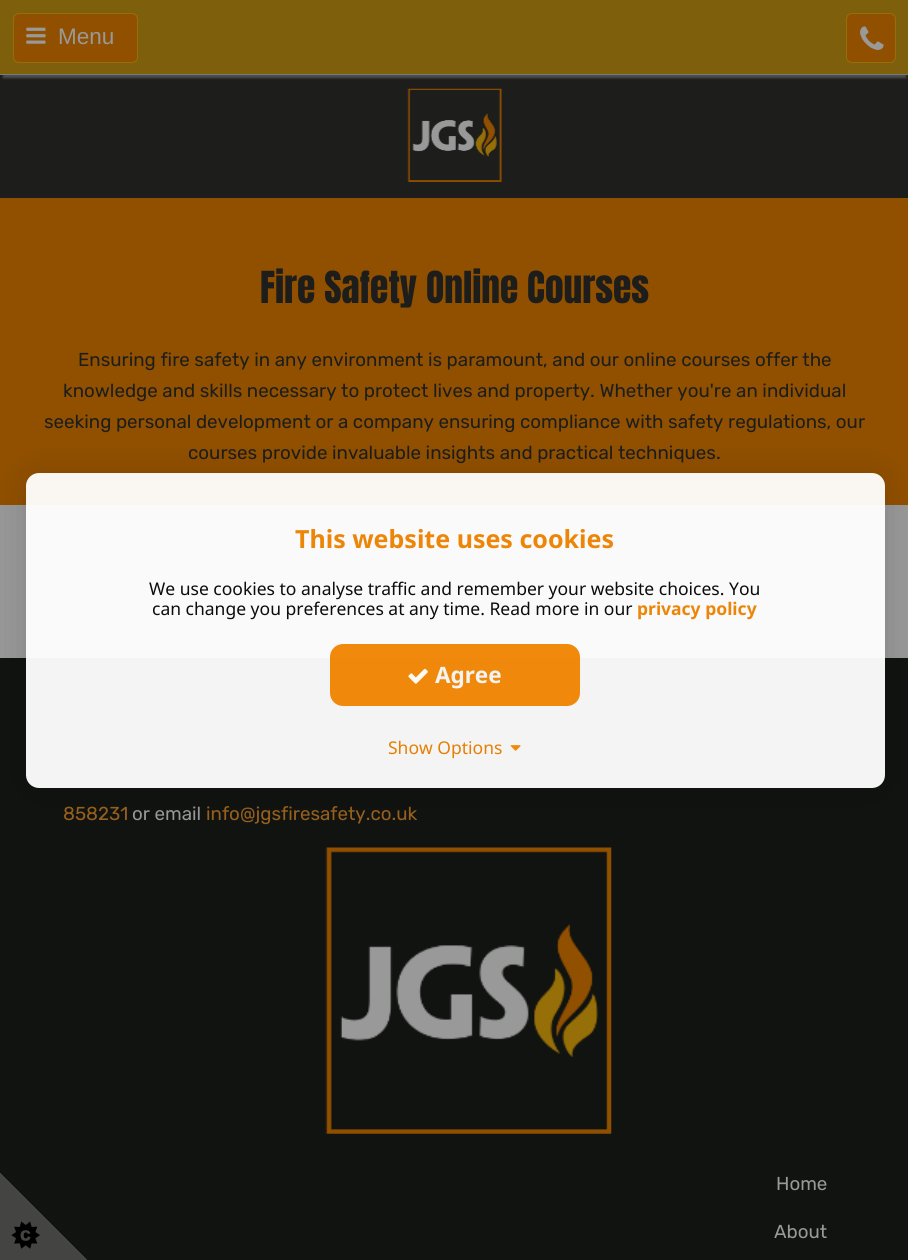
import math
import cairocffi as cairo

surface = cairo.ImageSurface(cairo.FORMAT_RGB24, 908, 1260)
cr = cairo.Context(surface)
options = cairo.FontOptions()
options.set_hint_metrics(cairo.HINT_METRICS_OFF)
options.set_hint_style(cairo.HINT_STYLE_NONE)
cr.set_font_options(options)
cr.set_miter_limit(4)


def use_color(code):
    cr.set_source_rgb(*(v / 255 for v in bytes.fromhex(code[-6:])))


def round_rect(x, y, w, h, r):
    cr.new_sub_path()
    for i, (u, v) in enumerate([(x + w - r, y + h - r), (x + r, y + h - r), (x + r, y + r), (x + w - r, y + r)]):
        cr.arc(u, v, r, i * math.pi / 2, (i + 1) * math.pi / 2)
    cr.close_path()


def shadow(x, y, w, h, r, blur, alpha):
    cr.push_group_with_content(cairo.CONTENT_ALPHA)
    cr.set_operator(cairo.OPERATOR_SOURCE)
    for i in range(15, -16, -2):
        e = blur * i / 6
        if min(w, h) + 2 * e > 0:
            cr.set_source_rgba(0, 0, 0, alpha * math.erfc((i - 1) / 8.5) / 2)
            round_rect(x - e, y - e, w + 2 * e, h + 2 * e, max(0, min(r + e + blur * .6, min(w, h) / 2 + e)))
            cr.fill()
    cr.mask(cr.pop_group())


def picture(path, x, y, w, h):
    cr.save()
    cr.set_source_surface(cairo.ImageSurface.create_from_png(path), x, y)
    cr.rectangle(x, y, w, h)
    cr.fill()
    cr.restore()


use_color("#1d1d1c")
cr.paint()
use_color("#4d4d4d")
shadow(3, 8, 903, 70, 0, 1, 1)
use_color("#7e5f0c")
cr.rectangle(0, 0, 908, 74)
cr.fill()
use_color("#7a7a7a")
cr.rectangle(0, 74, 908, 1)
cr.fill()
use_color("#915000")
round_rect(13.5, 13.5, 124, 49, 5.5)
cr.fill_preserve()
use_color("#976f08")
cr.set_line_width(1)
cr.stroke()
picture("img1.png", 26, 27, 20, 17)
cr.select_font_face("Liberation Sans")
cr.set_font_size(22.5)
use_color("#999999")
cr.move_to(58, 44)
cr.show_text("Menu")
use_color("#915000")
round_rect(846.5, 13.5, 49, 49, 5.5)
cr.fill_preserve()
use_color("#976f08")
cr.stroke()
picture("img2.png", 860, 26, 24, 24)
picture("img3.png", 407, 88, 95, 94)
use_color("#915000")
cr.rectangle(0, 198, 908, 307)
cr.fill()
cr.select_font_face("Anton")
cr.set_font_size(37.5)
use_color("#1d1d1c")
cr.move_to(260, 303)
cr.show_text("Fire Safety Online Courses")
cr.select_font_face("Rubik Light")
cr.set_font_size(18.75)
cr.move_to(78, 366)
cr.show_text("Ensuring fire safety in any environment is paramount, and our online courses offer the")
cr.move_to(63, 397)
cr.show_text("knowledge and skills necessary to protect lives and property. Whether you're an individual")
cr.move_to(44, 428)
cr.show_text("seeking personal development or a company ensuring compliance with safety regulations, our")
cr.move_to(188, 459)
cr.show_text("courses provide invaluable insights and practical techniques.")
use_color("#999999")
cr.rectangle(0, 505, 908, 153)
cr.fill()
use_color("#111310")
cr.rectangle(0, 658, 908, 602)
cr.fill()
use_color("#99611d")
cr.move_to(63, 820)
cr.show_text("858231")
use_color("#999999")
cr.move_to(132, 820)
cr.show_text("or email")
use_color("#99611d")
cr.move_to(206, 820)
cr.show_text("info@jgsfiresafety.co.uk")
picture("img4.png", 325, 847, 287, 287)
use_color("#999999")
cr.move_to(776, 1190)
cr.show_text("Home")
cr.move_to(774, 1238)
cr.show_text("About")
cr.save()
cr.set_fill_rule(cairo.FILL_RULE_EVEN_ODD)
cr.new_path()
cr.move_to(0, 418)
cr.line_to(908, 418)
cr.line_to(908, 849)
cr.line_to(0, 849)
cr.close_path()
cr.move_to(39, 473)
cr.line_to(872, 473)
cr.curve_to(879, 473, 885, 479, 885, 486)
cr.line_to(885, 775)
cr.curve_to(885, 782, 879, 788, 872, 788)
cr.line_to(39, 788)
cr.curve_to(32, 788, 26, 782, 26, 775)
cr.line_to(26, 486)
cr.curve_to(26, 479, 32, 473, 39, 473)
cr.close_path()
cr.clip()
use_color("#000000")
shadow(26, 476, 859, 315, 13, 19, 0.15)
cr.restore()
cr.set_source_rgba(1, 1, 1, 0.95)
round_rect(26, 473, 859, 315, 13)
cr.fill()
cr.select_font_face("Noto Sans", cairo.FONT_SLANT_NORMAL, cairo.FONT_WEIGHT_BOLD)
cr.set_font_size(25)
use_color("#ed8608")
cr.move_to(295, 548)
cr.show_text("This website uses cookies")
cr.select_font_face("Noto Sans")
cr.set_font_size(17.5)
use_color("#0c0c0c")
cr.move_to(149, 595)
cr.show_text("We use cookies to analyse traffic and remember your website choices.")
cr.move_to(729, 595)
cr.show_text("You")
cr.move_to(152, 615)
cr.show_text("can change you preferences at any time. Read more in our")
cr.select_font_face("Noto Sans", cairo.FONT_SLANT_NORMAL, cairo.FONT_WEIGHT_BOLD)
use_color("#ed8608")
cr.move_to(637, 615)
cr.show_text("privacy policy")
cr.set_source_rgba(0.945, 0.522, 0, 0.95)
round_rect(330, 644, 250, 62, 13)
cr.fill()
picture("img5.png", 408, 668, 20, 16)
cr.set_font_size(22.5)
use_color("#f3f3f3")
cr.move_to(435, 683)
cr.show_text("Agree")
cr.select_font_face("Noto Sans")
cr.set_font_size(17.5)
use_color("#e67f01")
cr.move_to(388, 754)
cr.show_text("Show Options")
picture("img6.png", 510, 745, 11, 6)
gradient = cairo.LinearGradient(88, 1173, 0, 1260)
gradient.add_color_stop_rgba(0.5, 0.067, 0.075, 0.063, 1)
gradient.add_color_stop_rgba(0.5, 0.267, 0.267, 0.263, 1)
cr.set_source(gradient)
cr.rectangle(0, 1173, 87, 87)
cr.fill()
picture("img7.png", 11, 1221, 29, 28)
surface.write_to_png("result.png")
